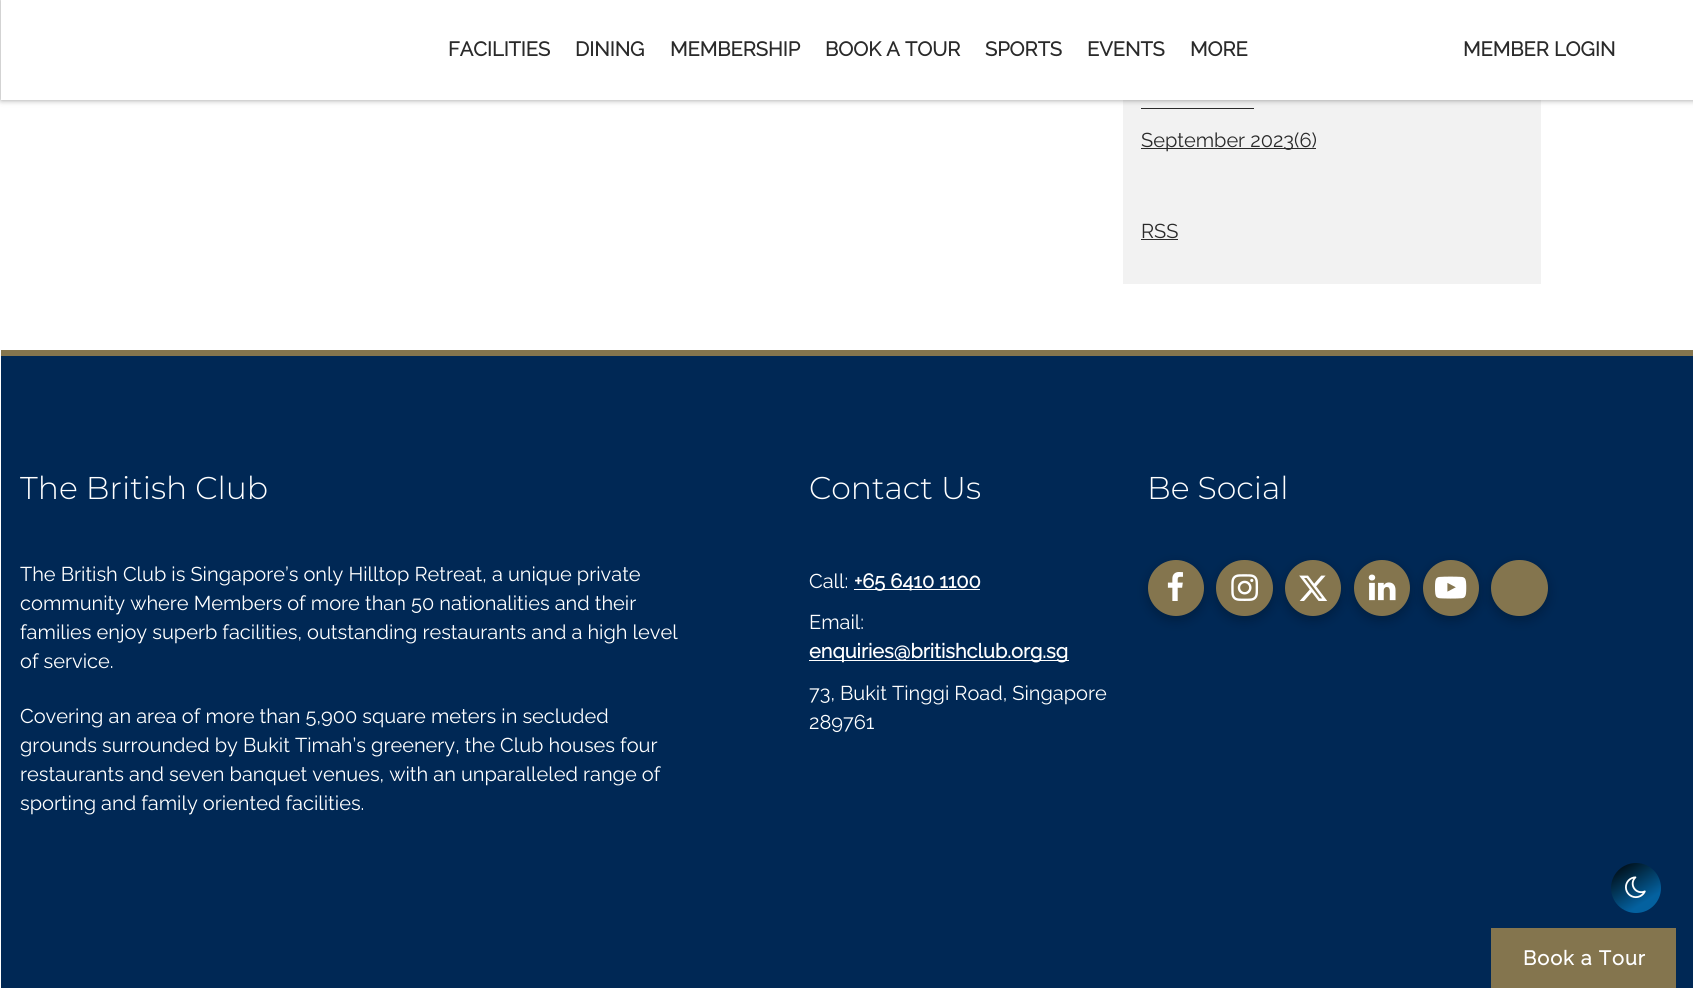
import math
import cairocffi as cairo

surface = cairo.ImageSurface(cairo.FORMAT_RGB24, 1693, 988)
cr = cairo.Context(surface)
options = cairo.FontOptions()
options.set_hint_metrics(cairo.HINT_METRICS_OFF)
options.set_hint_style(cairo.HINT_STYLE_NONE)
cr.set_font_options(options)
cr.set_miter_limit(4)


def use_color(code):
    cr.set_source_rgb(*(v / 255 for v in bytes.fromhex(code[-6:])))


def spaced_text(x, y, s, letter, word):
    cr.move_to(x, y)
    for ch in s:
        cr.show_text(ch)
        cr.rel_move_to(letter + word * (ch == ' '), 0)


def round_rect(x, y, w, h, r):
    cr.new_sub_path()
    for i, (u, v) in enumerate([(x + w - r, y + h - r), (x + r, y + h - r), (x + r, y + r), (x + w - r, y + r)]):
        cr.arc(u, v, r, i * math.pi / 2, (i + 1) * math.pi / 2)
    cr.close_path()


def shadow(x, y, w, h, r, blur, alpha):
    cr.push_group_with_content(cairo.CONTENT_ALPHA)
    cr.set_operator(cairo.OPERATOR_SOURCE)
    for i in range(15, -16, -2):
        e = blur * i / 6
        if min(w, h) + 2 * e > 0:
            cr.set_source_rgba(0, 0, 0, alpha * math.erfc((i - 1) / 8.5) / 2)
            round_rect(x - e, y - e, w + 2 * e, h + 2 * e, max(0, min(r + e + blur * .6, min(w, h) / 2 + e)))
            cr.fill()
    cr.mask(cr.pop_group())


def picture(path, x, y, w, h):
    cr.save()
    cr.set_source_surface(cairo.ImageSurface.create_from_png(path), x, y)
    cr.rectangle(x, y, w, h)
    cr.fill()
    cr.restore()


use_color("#ffffff")
cr.paint()
use_color("#f2f2f2")
cr.rectangle(1123, 100, 418, 184)
cr.fill()
use_color("#2a2a2a")
cr.rectangle(1141, 108, 113, 1)
cr.fill()
use_color("#000000")
shadow(1, 0, 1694, 100, 0, 3, 0.4)
use_color("#ffffff")
cr.rectangle(1, 0, 1692, 100)
cr.fill()
cr.select_font_face("Raleway", cairo.FONT_SLANT_NORMAL, cairo.FONT_WEIGHT_BOLD)
cr.set_font_size(20)
use_color("#2a2a2a")
cr.move_to(448, 56)
cr.show_text("FACILITIES")
cr.move_to(575, 56)
cr.show_text("DINING")
cr.move_to(670, 56)
cr.show_text("MEMBERSHIP")
cr.move_to(825, 56)
cr.show_text("BOOK A TOUR")
cr.move_to(985, 56)
cr.show_text("SPORTS")
cr.move_to(1087, 56)
cr.show_text("EVENTS")
cr.move_to(1190, 56)
cr.show_text("MORE")
cr.move_to(1463, 56)
cr.show_text("MEMBER LOGIN")
cr.rectangle(1141, 148, 175, 1)
cr.fill()
cr.select_font_face("Raleway Thin")
cr.move_to(1141, 147)
cr.show_text("September 2023(6)")
cr.move_to(1141, 238)
cr.show_text("RSS")
cr.rectangle(1141, 239, 37, 1)
cr.fill()
use_color("#002855")
cr.rectangle(1, 356, 1692, 632)
cr.fill()
use_color("#84754e")
cr.rectangle(1, 350, 1692, 6)
cr.fill()
cr.select_font_face("Montserrat Thin")
cr.set_font_size(31.5)
use_color("#ffffff")
cr.move_to(20, 499)
cr.show_text("The British Club")
cr.select_font_face("Raleway Thin")
cr.set_font_size(20)
cr.move_to(20, 581)
cr.show_text("The British Club is Singapore’s only Hilltop Retreat, a unique private")
cr.move_to(20, 610)
cr.show_text("community where Members of more than 50 nationalities and their")
cr.move_to(20, 639)
cr.show_text("families enjoy superb facilities, outstanding restaurants and a high level")
cr.move_to(20, 668)
cr.show_text("of service.")
cr.move_to(20, 723)
cr.show_text("Covering an area of more than 5,900 square meters in secluded")
cr.move_to(20, 752)
cr.show_text("grounds surrounded by Bukit Timah’s greenery, the Club houses four")
cr.move_to(20, 781)
cr.show_text("restaurants and seven banquet venues, with an unparalleled range of")
cr.move_to(20, 810)
cr.show_text("sporting and family oriented facilities.")
cr.select_font_face("Montserrat Thin")
cr.set_font_size(31.5)
cr.move_to(809, 499)
cr.show_text("Contact Us")
cr.select_font_face("Raleway Thin")
cr.set_font_size(20)
cr.move_to(809, 588)
cr.show_text("Call:")
cr.rectangle(854, 589, 126, 1)
cr.fill()
cr.select_font_face("Raleway", cairo.FONT_SLANT_NORMAL, cairo.FONT_WEIGHT_BOLD)
cr.move_to(854, 588)
cr.show_text("+65 6410 1100")
cr.select_font_face("Raleway Thin")
cr.move_to(809, 629)
cr.show_text("Email:")
cr.rectangle(809, 660, 260, 1)
cr.fill()
cr.select_font_face("Raleway", cairo.FONT_SLANT_NORMAL, cairo.FONT_WEIGHT_BOLD)
cr.move_to(809, 658)
cr.show_text("enquiries@britishclub.org.sg")
cr.select_font_face("Raleway Thin")
cr.move_to(809, 700)
cr.show_text("73, Bukit Tinggi Road, Singapore")
cr.move_to(809, 729)
cr.show_text("289761")
cr.select_font_face("Montserrat Thin")
cr.set_font_size(31.5)
cr.move_to(1147, 499)
cr.show_text("Be Social")
use_color("#000000")
shadow(1148, 564, 56, 56, 28, 6, 0.25)
use_color("#84754e")
cr.arc(1176, 588, 28, 0, 2 * math.pi)
cr.fill()
picture("img1.png", 1167, 572, 16, 29)
use_color("#000000")
shadow(1216, 564, 57, 56, 28, 6, 0.25)
use_color("#84754e")
round_rect(1216, 560, 57, 56, 28)
cr.fill()
picture("img2.png", 1231, 574, 28, 27)
use_color("#000000")
shadow(1285, 564, 56, 56, 28, 6, 0.25)
use_color("#84754e")
cr.arc(1313, 588, 28, 0, 2 * math.pi)
cr.fill()
picture("img3.png", 1299, 575, 29, 26)
use_color("#000000")
shadow(1354, 564, 56, 56, 28, 6, 0.25)
use_color("#84754e")
cr.arc(1382, 588, 28, 0, 2 * math.pi)
cr.fill()
picture("img4.png", 1368, 574, 28, 27)
use_color("#000000")
shadow(1423, 564, 56, 56, 28, 6, 0.25)
use_color("#84754e")
cr.arc(1451, 588, 28, 0, 2 * math.pi)
cr.fill()
picture("img5.png", 1435, 576, 32, 23)
use_color("#000000")
shadow(1491, 564, 57, 56, 28, 6, 0.25)
use_color("#84754e")
round_rect(1491, 560, 57, 56, 28)
cr.fill()
gradient = cairo.LinearGradient(1617, 858, 1655, 917)
gradient.add_color_stop_rgba(0, 0, 0, 0, 1)
gradient.add_color_stop_rgba(0.74, 0.016, 0.38, 0.624, 1)
cr.set_source(gradient)
cr.arc(1636, 888, 25, 0, 2 * math.pi)
cr.fill()
picture("img6.png", 1625, 876, 21, 23)
use_color("#84754e")
cr.rectangle(1491, 928, 185, 60)
cr.fill()
cr.select_font_face("Raleway", cairo.FONT_SLANT_NORMAL, cairo.FONT_WEIGHT_BOLD)
cr.set_font_size(20)
use_color("#ffffff")
spaced_text(1523, 965, "Book a Tour", 1, 0)
surface.write_to_png("result.png")
